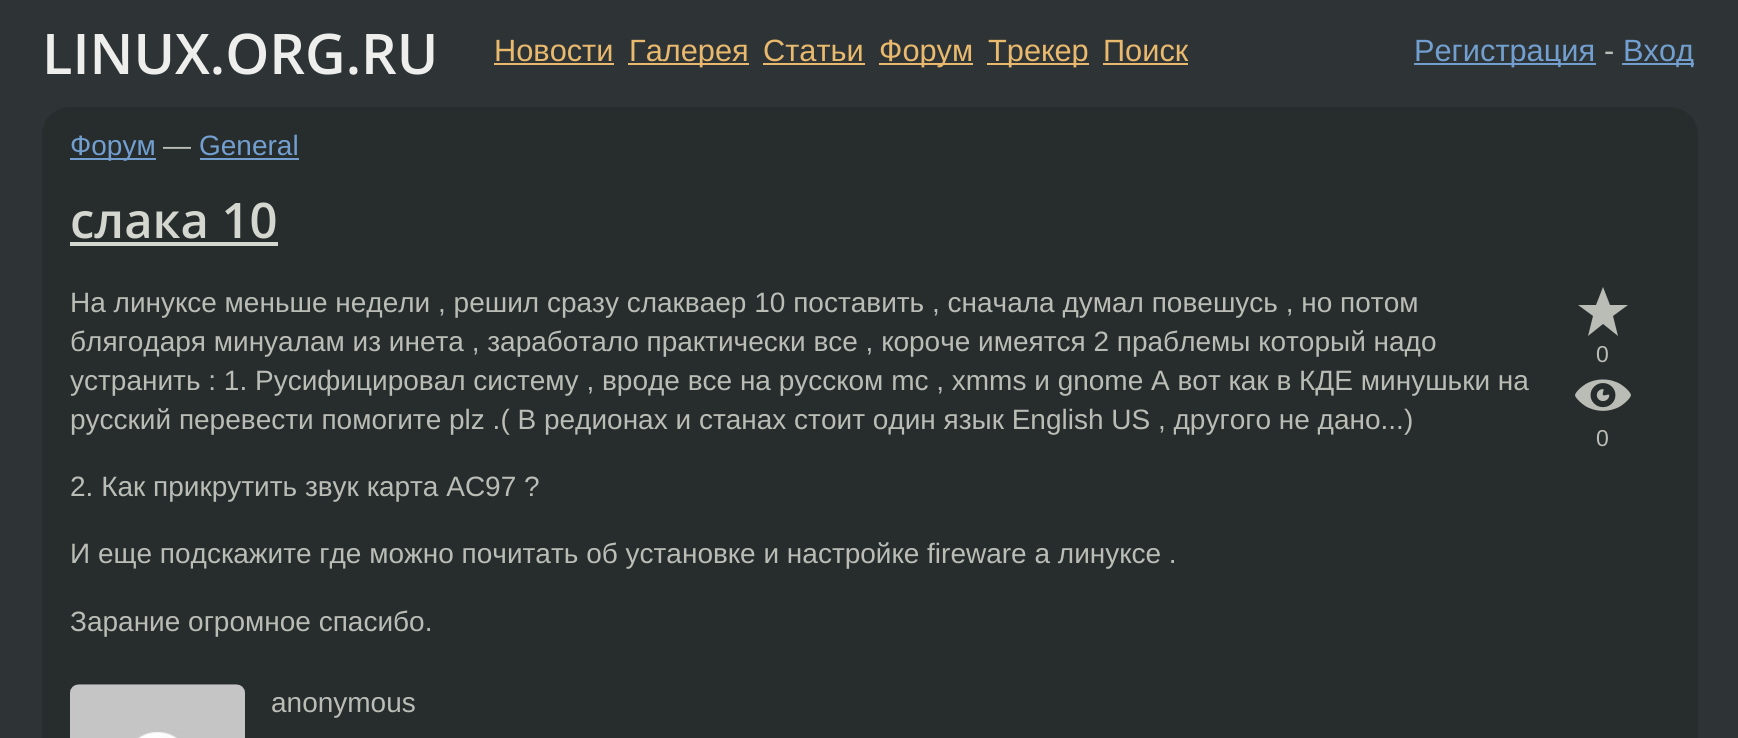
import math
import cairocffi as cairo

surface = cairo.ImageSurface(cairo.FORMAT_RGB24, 1738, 738)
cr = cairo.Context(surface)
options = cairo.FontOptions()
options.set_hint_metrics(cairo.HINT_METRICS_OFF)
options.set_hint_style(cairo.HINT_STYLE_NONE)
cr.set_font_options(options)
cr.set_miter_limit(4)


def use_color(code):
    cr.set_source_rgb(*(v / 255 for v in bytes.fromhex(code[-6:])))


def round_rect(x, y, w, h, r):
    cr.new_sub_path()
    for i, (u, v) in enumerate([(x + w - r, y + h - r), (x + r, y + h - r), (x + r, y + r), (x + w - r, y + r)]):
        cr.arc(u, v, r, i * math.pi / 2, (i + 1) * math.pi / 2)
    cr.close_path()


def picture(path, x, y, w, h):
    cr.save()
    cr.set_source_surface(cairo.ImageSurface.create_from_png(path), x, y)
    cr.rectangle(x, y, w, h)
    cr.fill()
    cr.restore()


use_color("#2e3436")
cr.paint()
cr.select_font_face("Open Sans SemiBold")
cr.set_font_size(56)
use_color("#eeeeec")
cr.move_to(42, 74)
cr.show_text("LINUX.ORG.RU")
cr.select_font_face("Liberation Sans")
cr.set_font_size(30.75)
use_color("#e9b96e")
cr.move_to(494, 61)
cr.show_text("Новости")
cr.rectangle(494, 63, 120, 2)
cr.fill()
cr.rectangle(628, 63, 121, 2)
cr.fill()
cr.move_to(629, 61)
cr.show_text("Галерея")
cr.move_to(763, 61)
cr.show_text("Статьи")
cr.rectangle(763, 63, 102, 2)
cr.fill()
cr.rectangle(879, 63, 94, 2)
cr.fill()
cr.move_to(879, 61)
cr.show_text("Форум")
cr.rectangle(987, 63, 102, 2)
cr.fill()
cr.move_to(988, 61)
cr.show_text("Трекер")
cr.move_to(1103, 61)
cr.show_text("Поиск")
cr.rectangle(1103, 63, 85, 2)
cr.fill()
use_color("#729fcf")
cr.rectangle(1414, 63, 182, 2)
cr.fill()
cr.move_to(1414, 61)
cr.show_text("Регистрация")
use_color("#babdb6")
cr.move_to(1604, 61)
cr.show_text("-")
use_color("#729fcf")
cr.rectangle(1622, 63, 72, 2)
cr.fill()
cr.move_to(1623, 61)
cr.show_text("Вход")
use_color("#272c2d")
round_rect(42, 107, 1656, 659, 28)
cr.fill()
use_color("#729fcf")
cr.rectangle(70, 158, 86, 2)
cr.fill()
cr.set_font_size(28)
cr.move_to(70, 155)
cr.show_text("Форум")
use_color("#babdb6")
cr.move_to(163, 155)
cr.show_text("—")
use_color("#729fcf")
cr.move_to(199, 155)
cr.show_text("General")
cr.rectangle(200, 158, 99, 2)
cr.fill()
cr.select_font_face("Open Sans SemiBold")
cr.set_font_size(49)
use_color("#d3d7cf")
cr.move_to(70, 238)
cr.show_text("слака 10")
cr.rectangle(70, 242, 208, 4)
cr.fill()
cr.select_font_face("Liberation Sans")
cr.set_font_size(28)
use_color("#babdb6")
cr.move_to(70, 312)
cr.show_text("На линуксе меньше недели , решил сразу слакваер 10 поставить , сначала думал повешусь , но потом")
cr.move_to(70, 351)
cr.show_text("блягодаря минуалам из инета , заработало практически все , короче имеятся 2 праблемы который надо")
cr.move_to(70, 390)
cr.show_text("устранить : 1. Русифицировал систему , вроде все на русском mc , xmms и gnome А вот как в КДЕ минушьки на")
cr.move_to(70, 429)
cr.show_text("русский перевести помогите plz .( В редионах и станах стоит один язык English US , другого не дано...)")
cr.move_to(70, 496)
cr.show_text("2. Как прикрутить звук карта AC97 ?")
cr.move_to(70, 563)
cr.show_text("И еще подскажите где можно почитать об установке и настройке fireware а линуксе .")
cr.move_to(70, 631)
cr.show_text("Зарание огромное спасибо.")
cr.new_path()
cr.move_to(1603, 287)
cr.line_to(1610, 305)
cr.line_to(1628, 305)
cr.line_to(1613, 316)
cr.line_to(1618, 336)
cr.line_to(1603, 324)
cr.line_to(1588, 336)
cr.line_to(1593, 316)
cr.line_to(1578, 305)
cr.line_to(1596, 305)
cr.close_path()
cr.fill()
cr.set_font_size(23)
cr.move_to(1596, 362)
cr.show_text("0")
picture("img1.png", 1575, 379, 56, 32)
cr.move_to(1596, 446)
cr.show_text("0")
picture("img2.png", 70, 684, 175, 54)
cr.set_font_size(28)
cr.move_to(271, 712)
cr.show_text("anonymous")
surface.write_to_png("result.png")
